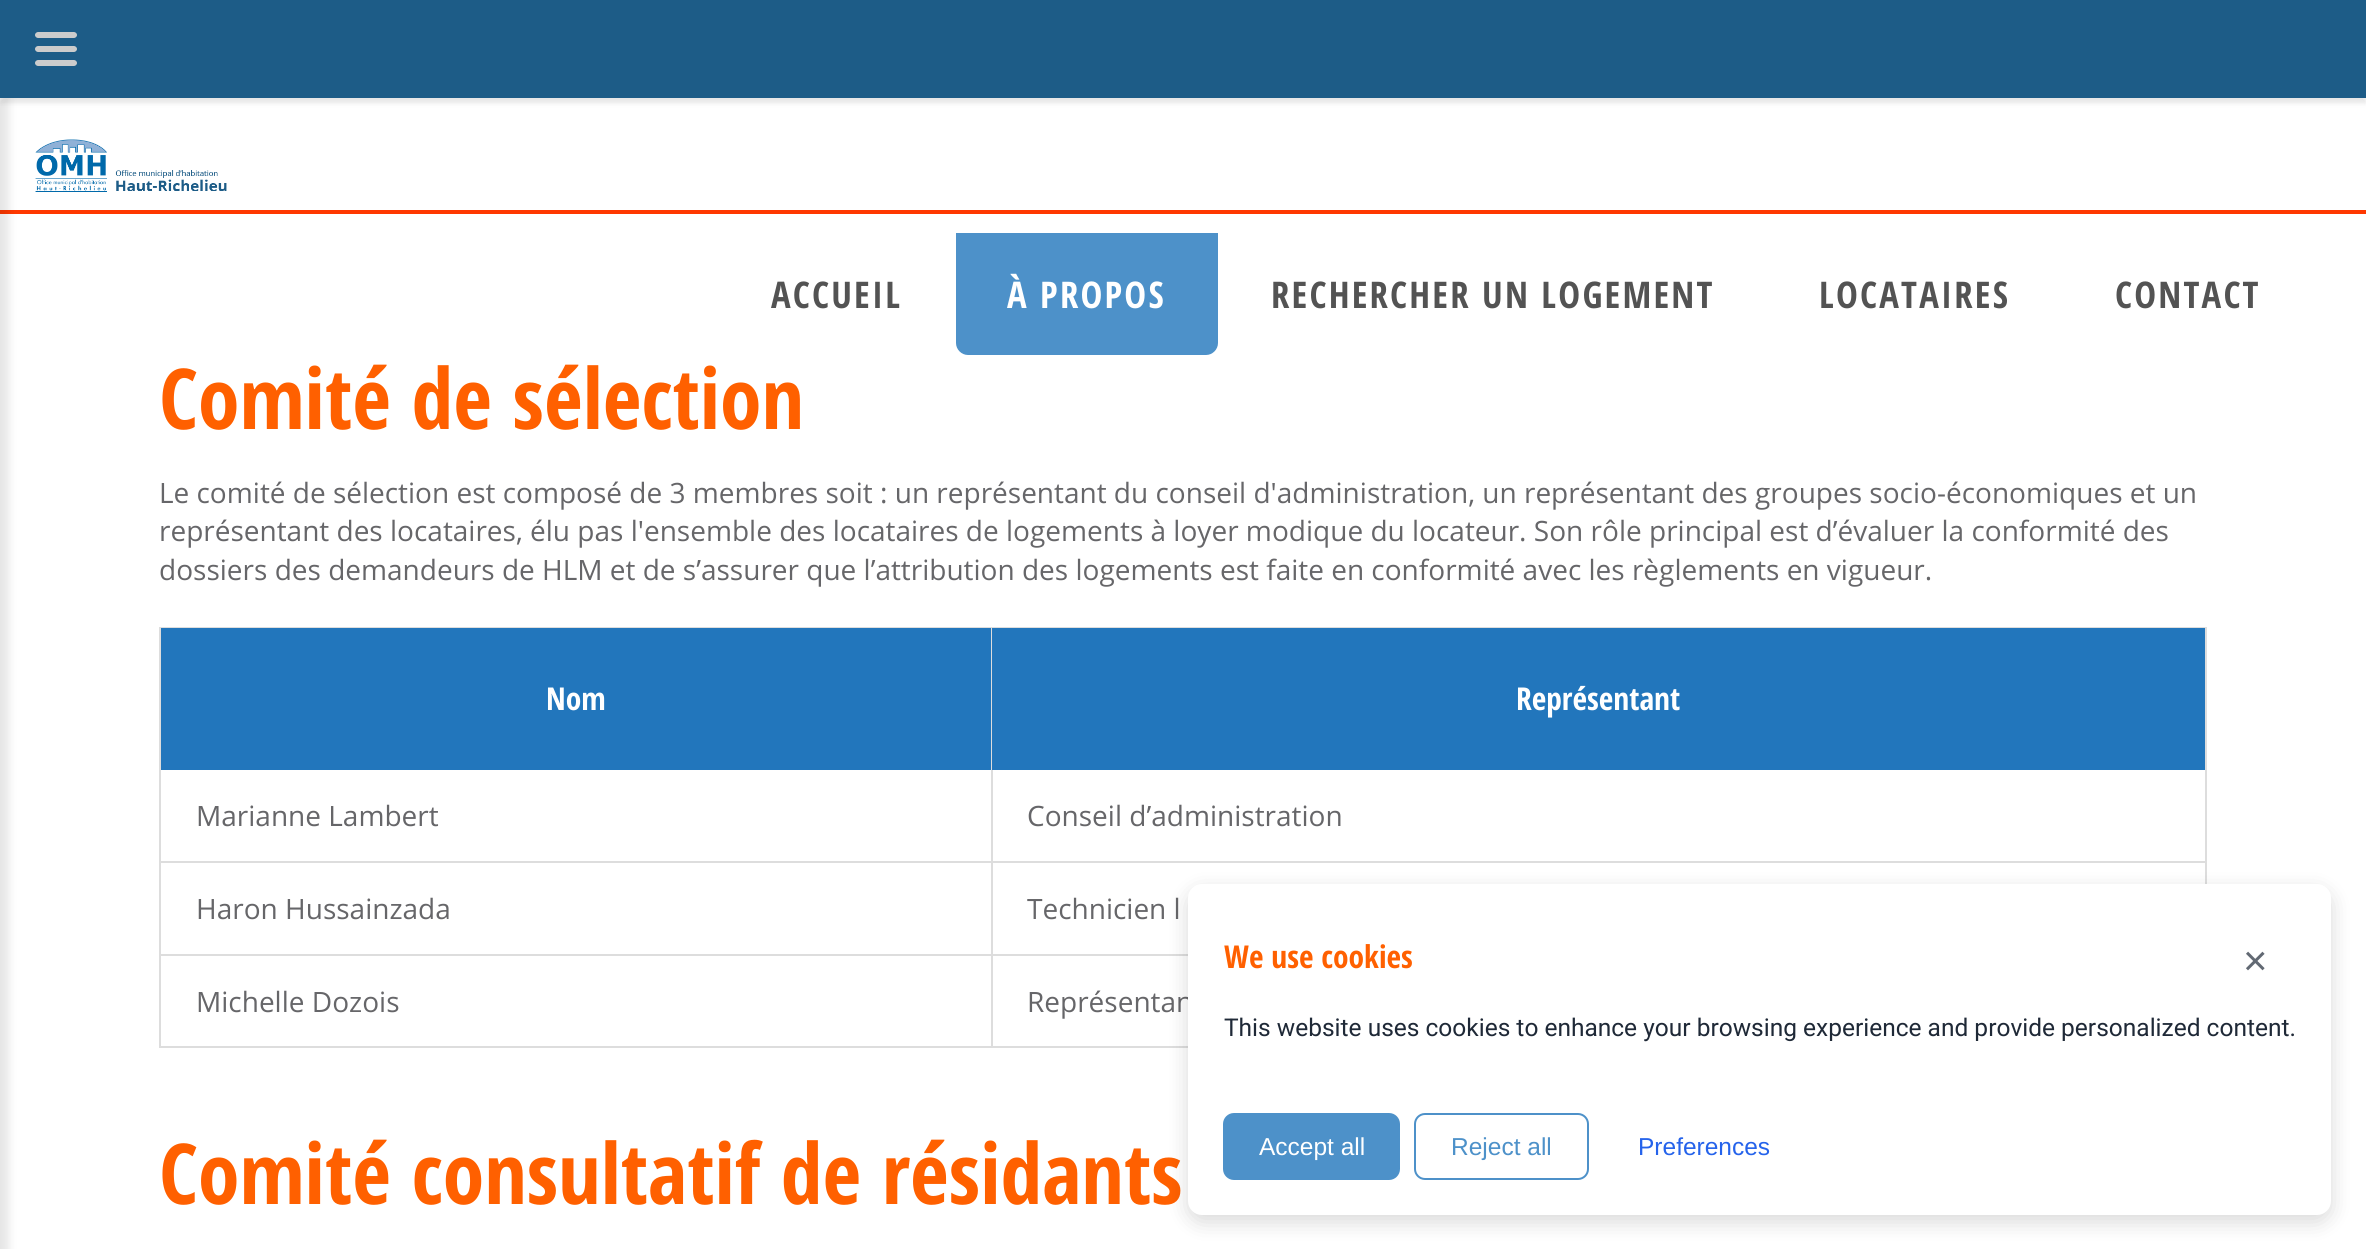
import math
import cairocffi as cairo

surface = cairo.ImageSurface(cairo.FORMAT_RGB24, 2366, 1249)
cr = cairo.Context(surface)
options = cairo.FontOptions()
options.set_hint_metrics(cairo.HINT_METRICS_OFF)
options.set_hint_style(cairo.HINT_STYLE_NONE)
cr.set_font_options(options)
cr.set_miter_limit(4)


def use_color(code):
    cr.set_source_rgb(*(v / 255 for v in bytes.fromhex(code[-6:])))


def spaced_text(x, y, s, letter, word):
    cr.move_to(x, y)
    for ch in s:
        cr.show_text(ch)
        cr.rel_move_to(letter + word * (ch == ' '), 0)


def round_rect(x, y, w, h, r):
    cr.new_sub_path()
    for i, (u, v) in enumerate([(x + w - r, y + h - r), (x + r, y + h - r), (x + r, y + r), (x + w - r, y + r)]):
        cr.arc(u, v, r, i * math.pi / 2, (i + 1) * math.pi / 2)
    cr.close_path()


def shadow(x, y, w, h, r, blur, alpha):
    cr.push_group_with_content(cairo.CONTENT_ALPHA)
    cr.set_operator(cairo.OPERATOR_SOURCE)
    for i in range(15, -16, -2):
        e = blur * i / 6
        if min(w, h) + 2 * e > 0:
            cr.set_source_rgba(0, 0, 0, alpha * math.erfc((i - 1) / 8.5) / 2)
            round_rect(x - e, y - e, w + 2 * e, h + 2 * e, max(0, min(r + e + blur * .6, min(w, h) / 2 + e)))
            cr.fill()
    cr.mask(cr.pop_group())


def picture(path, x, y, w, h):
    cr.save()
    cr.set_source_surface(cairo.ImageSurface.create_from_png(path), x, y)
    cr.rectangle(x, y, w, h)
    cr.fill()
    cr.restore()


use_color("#ffffff")
cr.paint()
use_color("#000000")
shadow(0, 5, 2366, 98, 0, 2.5, 0.1)
use_color("#ff3800")
cr.rectangle(0, 210, 2366, 4)
cr.fill()
use_color("#000000")
shadow(-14, 98, 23, 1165, 0, 4.5, 0.1)
use_color("#1d5c87")
cr.rectangle(0, 0, 2366, 98)
cr.fill()
use_color("#cccccc")
cr.new_path()
cr.move_to(74, 52)
cr.line_to(38, 52)
cr.curve_to(37, 52, 35, 51, 35, 49)
cr.curve_to(35, 47, 37, 46, 38, 46)
cr.line_to(74, 46)
cr.curve_to(75, 46, 77, 47, 77, 49)
cr.curve_to(77, 51, 75, 52, 74, 52)
cr.close_path()
cr.move_to(74, 66)
cr.line_to(38, 66)
cr.curve_to(37, 66, 35, 65, 35, 63)
cr.curve_to(35, 61, 37, 60, 38, 60)
cr.line_to(74, 60)
cr.curve_to(75, 60, 77, 61, 77, 63)
cr.curve_to(77, 65, 75, 66, 74, 66)
cr.close_path()
cr.move_to(74, 38)
cr.line_to(38, 38)
cr.curve_to(37, 38, 35, 37, 35, 35)
cr.curve_to(35, 33, 37, 32, 38, 32)
cr.line_to(74, 32)
cr.curve_to(75, 32, 77, 33, 77, 35)
cr.curve_to(77, 37, 75, 38, 74, 38)
cr.close_path()
cr.fill()
picture("img1.png", 35, 139, 192, 53)
cr.select_font_face("Open Sans Condensed", cairo.FONT_SLANT_NORMAL, cairo.FONT_WEIGHT_BOLD)
cr.set_font_size(36.75)
use_color("#535353")
spaced_text(771, 308, "ACCUEIL", 2.2, 0)
use_color("#4d91c9")
cr.new_path()
cr.move_to(956, 233)
cr.line_to(1218, 233)
cr.line_to(1218, 343)
cr.curve_to(1218, 349.5, 1212.5, 355, 1206, 355)
cr.line_to(968, 355)
cr.curve_to(961.5, 355, 956, 349.5, 956, 343)
cr.close_path()
cr.fill()
use_color("#ffffff")
spaced_text(1007, 308, "À PROPOS", 2.2, 0)
use_color("#535353")
spaced_text(1271, 308, "RECHERCHER UN LOGEMENT", 2.2, 0)
spaced_text(1819, 308, "LOCATAIRES", 2.2, 0)
spaced_text(2115, 308, "CONTACT", 2.2, 0)
cr.set_font_size(84)
use_color("#ff6000")
cr.move_to(159, 429)
cr.show_text("Comité de sélection")
cr.select_font_face("Open Sans")
cr.set_font_size(28)
use_color("#666669")
cr.move_to(159, 503)
cr.show_text("Le comité de sélection est composé de 3 membres soit : un représentant du conseil d'administration, un représentant des groupes socio-économiques et un")
cr.move_to(159, 541)
cr.show_text("représentant des locataires, élu pas l'ensemble des locataires de logements à loyer modique du locateur. Son rôle principal est d’évaluer la conformité des")
cr.move_to(159, 580)
cr.show_text("dossiers des demandeurs de HLM et de s’assurer que l’attribution des logements est faite en conformité avec les règlements en vigueur.")
cr.rectangle(160, 628, 2046, 419)
use_color("#dddddd")
cr.stroke()
use_color("#2276bc")
cr.rectangle(161, 628, 830, 142)
cr.fill()
use_color("#dddddd")
cr.rectangle(991, 628, 1, 142)
cr.fill()
cr.select_font_face("Open Sans Condensed", cairo.FONT_SLANT_NORMAL, cairo.FONT_WEIGHT_BOLD)
cr.set_font_size(31.5)
use_color("#ffffff")
cr.move_to(546, 710)
cr.show_text("Nom")
use_color("#2276bc")
cr.rectangle(992, 628, 1213, 142)
cr.fill()
use_color("#ffffff")
cr.move_to(1516, 710)
cr.show_text("Représentant")
use_color("#dddddd")
cr.rectangle(991, 770, 2, 91)
cr.fill()
cr.select_font_face("Open Sans")
cr.set_font_size(28)
use_color("#666669")
cr.move_to(196, 826)
cr.show_text("Marianne Lambert")
cr.move_to(1027, 826)
cr.show_text("Conseil d’administration")
use_color("#dddddd")
cr.rectangle(161, 861, 831, 2)
cr.fill()
cr.rectangle(991, 861, 2, 93)
cr.fill()
use_color("#666669")
cr.move_to(196, 919)
cr.show_text("Haron Hussainzada")
use_color("#dddddd")
cr.rectangle(992, 861, 1213, 2)
cr.fill()
use_color("#666669")
cr.move_to(1027, 919)
cr.show_text("Technicien l")
use_color("#dddddd")
cr.rectangle(161, 954, 831, 2)
cr.fill()
cr.rectangle(991, 954, 2, 93)
cr.fill()
use_color("#666669")
cr.move_to(196, 1012)
cr.show_text("Michelle Dozois")
use_color("#dddddd")
cr.rectangle(992, 954, 196, 2)
cr.fill()
use_color("#666669")
cr.move_to(1027, 1012)
cr.show_text("Représentan")
cr.select_font_face("Open Sans Condensed", cairo.FONT_SLANT_NORMAL, cairo.FONT_WEIGHT_BOLD)
cr.set_font_size(84)
use_color("#ff6000")
cr.move_to(159, 1204)
cr.show_text("Comité consultatif de résidants")
use_color("#000000")
shadow(1188, 891, 1143, 331, 14, 10.5, 0.15)
use_color("#ffffff")
round_rect(1188, 884, 1143, 331, 14)
cr.fill()
cr.set_font_size(31.5)
use_color("#ff6000")
cr.move_to(1224, 968)
cr.show_text("We use cookies")
cr.select_font_face("Roboto")
cr.set_font_size(24.5)
use_color("#1f2937")
cr.move_to(1224, 1036)
cr.show_text("This website uses cookies to enhance your browsing experience and provide personalized content.")
use_color("#4d91c9")
round_rect(1223, 1113, 177, 67, 11)
cr.fill()
cr.select_font_face("Liberation Sans")
use_color("#ffffff")
cr.move_to(1259, 1155)
cr.show_text("Accept all")
round_rect(1415, 1114, 173, 65, 10)
use_color("#4d91c9")
cr.stroke()
cr.move_to(1451, 1155)
cr.show_text("Reject all")
use_color("#2563eb")
cr.move_to(1638, 1155)
cr.show_text("Preferences")
cr.set_font_size(42)
use_color("#626973")
cr.move_to(2243, 975)
cr.show_text("×")
surface.write_to_png("result.png")
